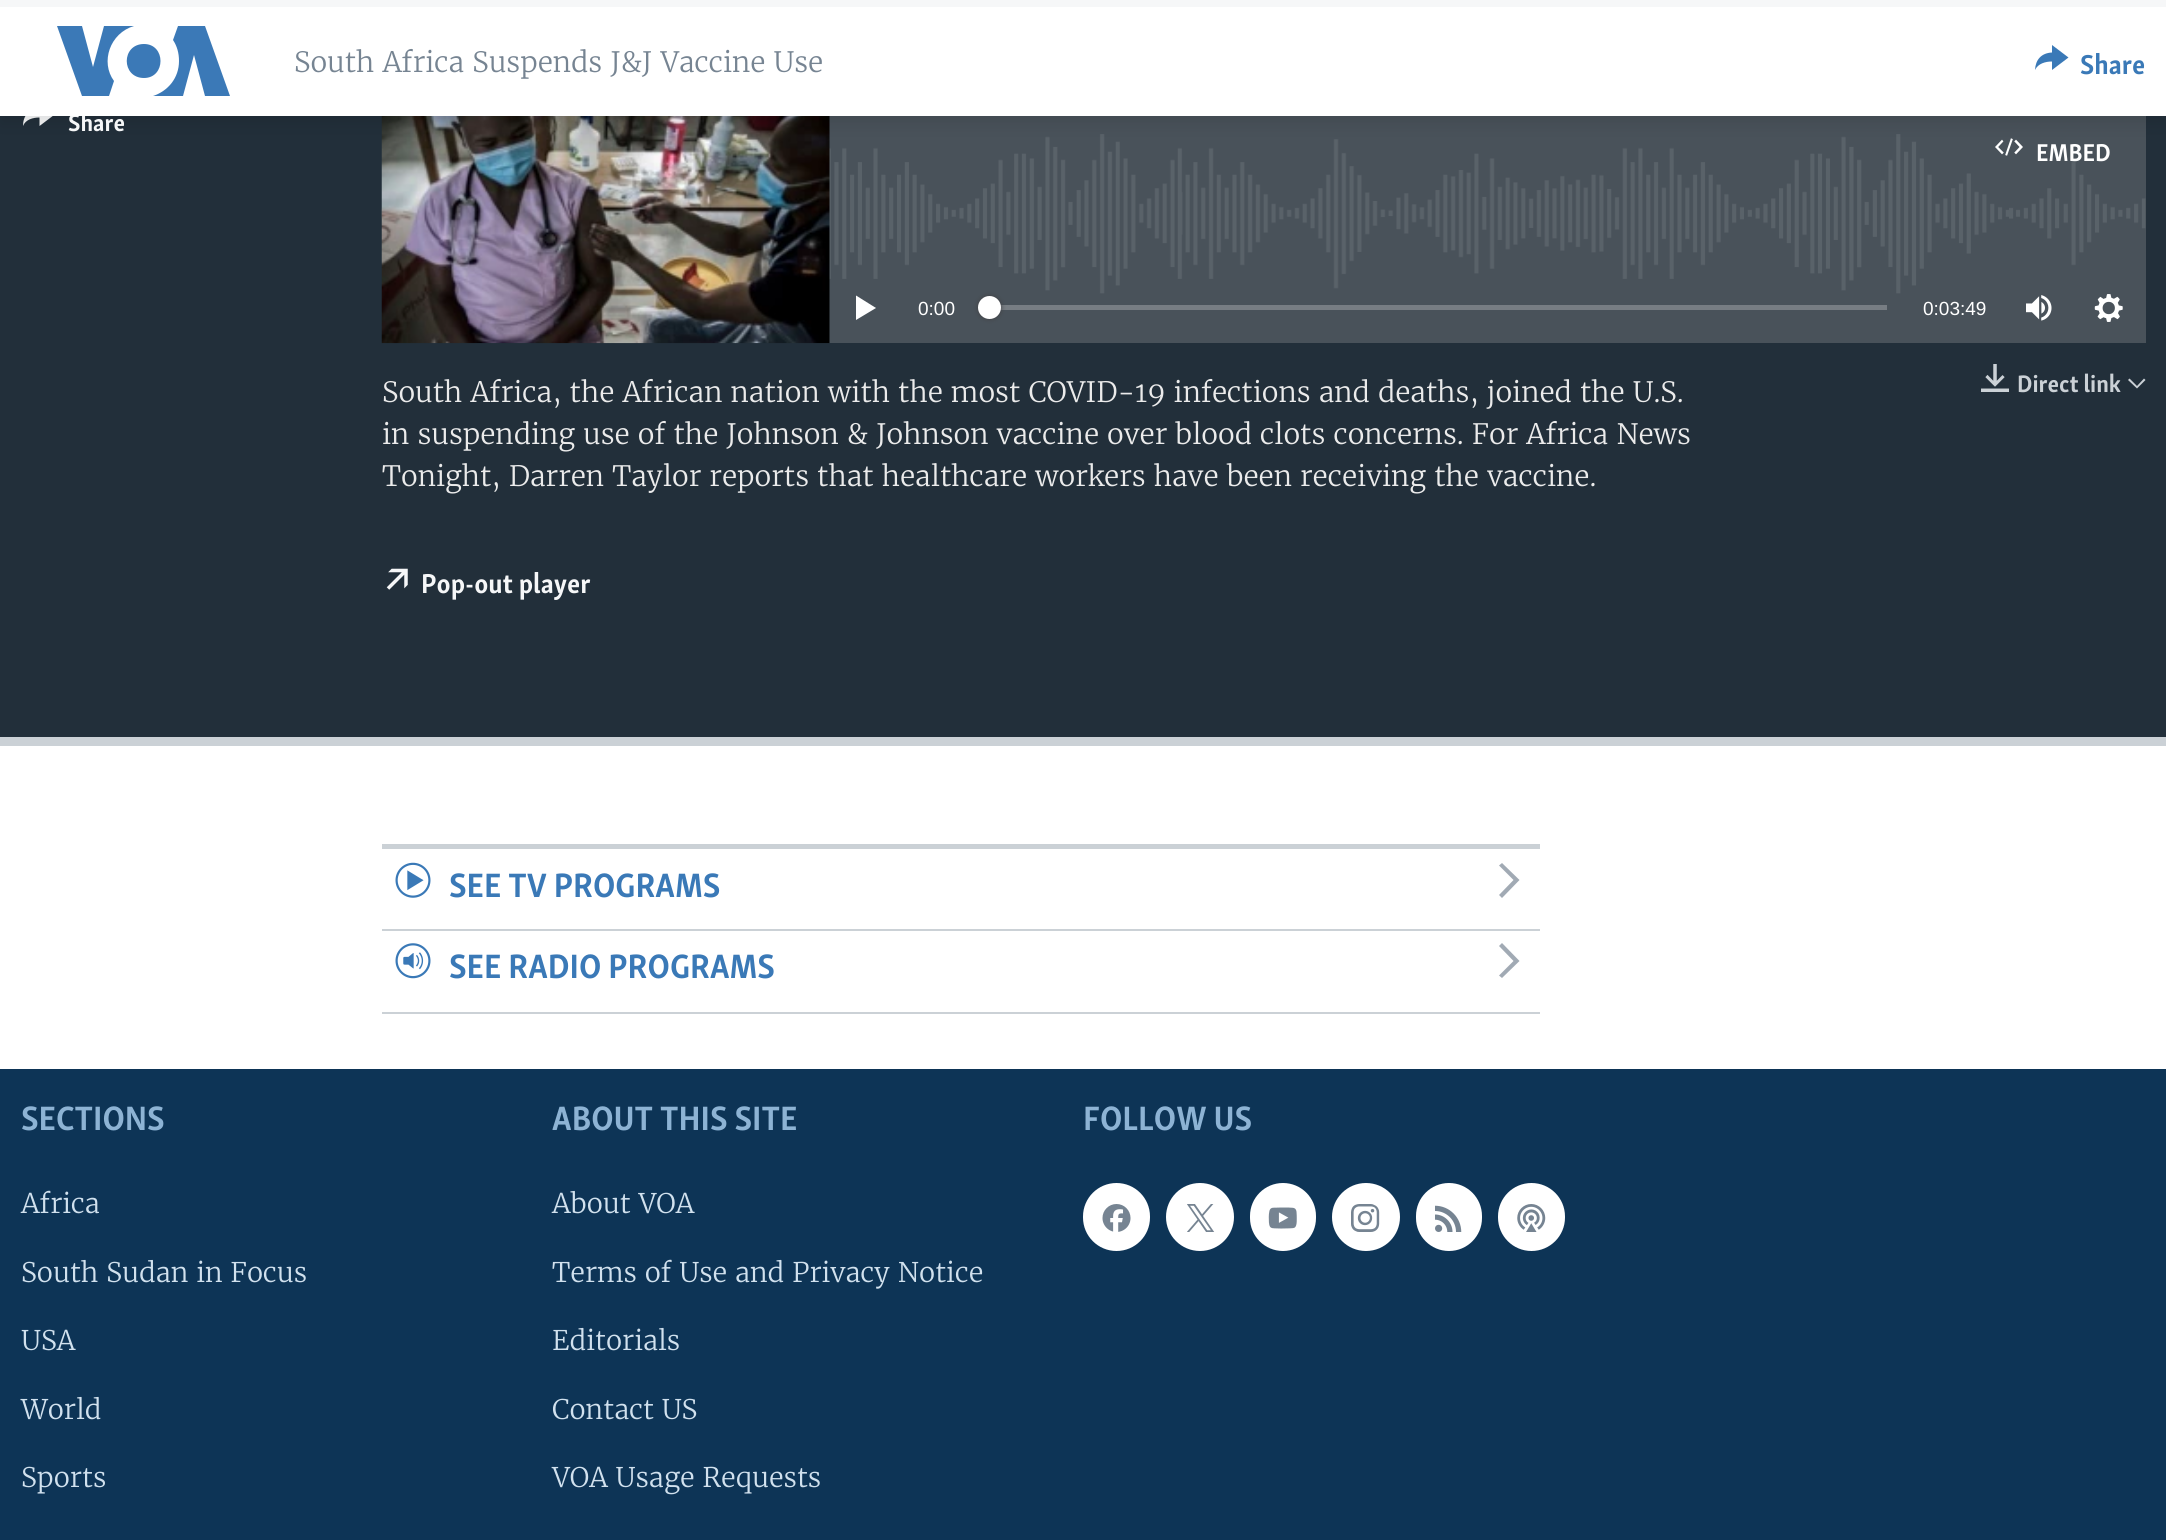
import math
import cairocffi as cairo

surface = cairo.ImageSurface(cairo.FORMAT_RGB24, 2166, 1540)
cr = cairo.Context(surface)
options = cairo.FontOptions()
options.set_hint_metrics(cairo.HINT_METRICS_OFF)
options.set_hint_style(cairo.HINT_STYLE_NONE)
cr.set_font_options(options)
cr.set_miter_limit(4)


def use_color(code):
    cr.set_source_rgb(*(v / 255 for v in bytes.fromhex(code[-6:])))


def round_rect(x, y, w, h, r):
    cr.new_sub_path()
    for i, (u, v) in enumerate([(x + w - r, y + h - r), (x + r, y + h - r), (x + r, y + r), (x + w - r, y + r)]):
        cr.arc(u, v, r, i * math.pi / 2, (i + 1) * math.pi / 2)
    cr.close_path()


def shadow(x, y, w, h, r, blur, alpha):
    cr.push_group_with_content(cairo.CONTENT_ALPHA)
    cr.set_operator(cairo.OPERATOR_SOURCE)
    for i in range(15, -16, -2):
        e = blur * i / 6
        if min(w, h) + 2 * e > 0:
            cr.set_source_rgba(0, 0, 0, alpha * math.erfc((i - 1) / 8.5) / 2)
            round_rect(x - e, y - e, w + 2 * e, h + 2 * e, max(0, min(r + e + blur * .6, min(w, h) / 2 + e)))
            cr.fill()
    cr.mask(cr.pop_group())


def picture(path, x, y, w, h):
    cr.save()
    cr.set_source_surface(cairo.ImageSurface.create_from_png(path), x, y)
    cr.rectangle(x, y, w, h)
    cr.fill()
    cr.restore()


use_color("#ffffff")
cr.paint()
use_color("#222f3a")
cr.rectangle(0, 116, 2166, 621)
cr.fill()
use_color("#f6f7f8")
cr.new_path()
cr.move_to(23, 126)
cr.curve_to(23, 115.5, 29, 109, 39.5, 108.5)
cr.line_to(39.5, 101)
cr.line_to(56, 113.5)
cr.line_to(39.5, 126)
cr.line_to(39.5, 117.5)
cr.curve_to(33, 117.5, 25.5, 119.5, 23, 126)
cr.close_path()
cr.fill()
use_color("#49525a")
cr.rectangle(829, 116, 1317, 227)
cr.fill()
picture("img1.png", 381, 134, 1765, 160)
picture("img2.png", 381, 116, 449, 228)
picture("img3.png", 1995, 138, 28, 18)
use_color("#000000")
shadow(0, 9, 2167, 115, 0, 9, 0.1)
cr.select_font_face("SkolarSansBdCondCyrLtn", cairo.FONT_SLANT_NORMAL, cairo.FONT_WEIGHT_BOLD)
cr.set_font_size(24.5)
use_color("#f6f7f8")
cr.move_to(68, 131)
cr.show_text("Share")
use_color("#ffffff")
cr.rectangle(0, 7, 2166, 109)
cr.fill()
use_color("#f6f7f8")
cr.rectangle(0, 0, 2166, 7)
cr.fill()
use_color("#3b79b7")
cr.new_path()
cr.move_to(114, 81)
cr.line_to(109, 96)
cr.line_to(82, 96)
cr.line_to(57, 26)
cr.line_to(82, 26)
cr.line_to(93, 67)
cr.line_to(104, 26)
cr.line_to(134, 26)
cr.curve_to(110, 33, 100, 62, 114, 81)
cr.close_path()
cr.move_to(144, 44)
cr.curve_to(121, 44, 121, 78, 144, 78)
cr.curve_to(166, 78, 166, 44, 144, 44)
cr.close_path()
cr.move_to(179, 61)
cr.curve_to(179, 78, 168, 91, 153, 96)
cr.line_to(183, 96)
cr.line_to(194, 55)
cr.line_to(205, 96)
cr.line_to(230, 96)
cr.line_to(205, 26)
cr.line_to(178, 26)
cr.line_to(173, 40)
cr.curve_to(177, 46, 179, 53, 179, 61)
cr.close_path()
cr.fill()
cr.select_font_face("Merriweather Light")
cr.set_font_size(28)
use_color("#768492")
cr.move_to(294, 72)
cr.show_text("South Africa Suspends J&J Vaccine Use")
use_color("#3a79b7")
cr.new_path()
cr.move_to(2035, 70)
cr.curve_to(2035.5, 59.5, 2041.5, 53, 2052, 52.5)
cr.line_to(2052, 45)
cr.line_to(2068.5, 57.5)
cr.line_to(2052, 70)
cr.line_to(2052, 61.5)
cr.curve_to(2045.5, 61.5, 2038, 63.5, 2035, 70)
cr.close_path()
cr.fill()
cr.select_font_face("SkolarSansBdCondCyrLtn", cairo.FONT_SLANT_NORMAL, cairo.FONT_WEIGHT_BOLD)
cr.move_to(2080, 74)
cr.show_text("Share")
use_color("#cbd1d6")
cr.rectangle(0, 737, 2166, 9)
cr.fill()
cr.set_font_size(25)
use_color("#ffffff")
cr.move_to(2036, 161)
cr.show_text("EMBED")
cr.new_path()
cr.move_to(856, 320)
cr.line_to(876, 308)
cr.line_to(856, 295.5)
cr.close_path()
cr.fill()
cr.select_font_face("Liberation Sans")
cr.set_font_size(19)
cr.move_to(918, 315)
cr.show_text("0:00")
use_color("#777d83")
cr.rectangle(1000, 305, 887, 5)
cr.fill()
use_color("#414144")
shadow(978, 296, 23, 23, 11.5, 2.5, 1)
use_color("#ffffff")
cr.arc(989.5, 307.5, 11.5, 0, 2 * math.pi)
cr.fill()
cr.move_to(1923, 315)
cr.show_text("0:03:49")
picture("img4.png", 2026, 295, 26, 26)
picture("img5.png", 2094, 294, 29, 28)
cr.select_font_face("Merriweather Light")
cr.set_font_size(28)
use_color("#ebebeb")
cr.move_to(382, 402)
cr.show_text("South Africa, the African nation with the most COVID-19 infections and deaths, joined the U.S.")
cr.move_to(382, 444)
cr.show_text("in suspending use of the Johnson & Johnson vaccine over blood clots concerns. For Africa News")
cr.move_to(382, 486)
cr.show_text("Tonight, Darren Taylor reports that healthcare workers have been receiving the vaccine.")
picture("img6.png", 1981, 364, 28, 28)
cr.select_font_face("SkolarSansBdCondCyrLtn", cairo.FONT_SLANT_NORMAL, cairo.FONT_WEIGHT_BOLD)
cr.set_font_size(24.5)
use_color("#cbd1d6")
cr.move_to(2017, 392)
cr.show_text("Direct link")
cr.new_path()
cr.move_to(2128, 380)
cr.line_to(2137, 388.5)
cr.line_to(2145.5, 380)
cr.line_to(2144, 378.5)
cr.line_to(2137, 386)
cr.line_to(2129.5, 378.5)
cr.close_path()
cr.fill()
picture("img7.png", 386, 568, 22, 22)
cr.set_font_size(28)
use_color("#f6f7f8")
cr.move_to(421, 593)
cr.show_text("Pop-out player")
use_color("#cbd1d6")
cr.rectangle(382, 844, 1158, 5)
cr.fill()
cr.rectangle(382, 929, 1158, 2)
cr.fill()
picture("img8.png", 395, 862, 36, 36)
cr.set_font_size(34.75)
use_color("#3a79b7")
cr.move_to(449, 897)
cr.show_text("SEE TV PROGRAMS")
use_color("#a1aab4")
cr.new_path()
cr.move_to(1502, 898)
cr.line_to(1519.5, 880)
cr.line_to(1502, 863)
cr.line_to(1499, 865.5)
cr.line_to(1513.5, 880)
cr.line_to(1499, 895)
cr.close_path()
cr.fill()
use_color("#cbd1d6")
cr.rectangle(382, 1012, 1158, 2)
cr.fill()
picture("img9.png", 395, 943, 36, 36)
use_color("#3a79b7")
cr.move_to(449, 978)
cr.show_text("SEE RADIO PROGRAMS")
use_color("#a1aab4")
cr.new_path()
cr.move_to(1502, 978)
cr.line_to(1519.5, 961)
cr.line_to(1502, 943)
cr.line_to(1499, 946)
cr.line_to(1513.5, 961)
cr.line_to(1499, 975.5)
cr.close_path()
cr.fill()
use_color("#0d3456")
cr.rectangle(0, 1069, 2166, 471)
cr.fill()
use_color("#8db3d4")
cr.move_to(21, 1130)
cr.show_text("SECTIONS")
cr.select_font_face("Merriweather Light")
cr.set_font_size(27)
use_color("#d1e1ee")
cr.move_to(21, 1213)
cr.show_text("Africa")
cr.move_to(21, 1282)
cr.show_text("South Sudan in Focus")
cr.move_to(21, 1350)
cr.show_text("USA")
cr.move_to(21, 1419)
cr.show_text("World")
cr.move_to(21, 1487)
cr.show_text("Sports")
cr.select_font_face("SkolarSansBdCondCyrLtn", cairo.FONT_SLANT_NORMAL, cairo.FONT_WEIGHT_BOLD)
cr.set_font_size(34.75)
use_color("#8db3d4")
cr.move_to(552, 1130)
cr.show_text("ABOUT THIS SITE")
cr.select_font_face("Merriweather Light")
cr.set_font_size(27)
use_color("#d1e1ee")
cr.move_to(552, 1213)
cr.show_text("About VOA")
cr.move_to(552, 1282)
cr.show_text("Terms of Use and Privacy Notice")
cr.move_to(552, 1350)
cr.show_text("Editorials")
cr.move_to(552, 1419)
cr.show_text("Contact US")
cr.move_to(552, 1487)
cr.show_text("VOA Usage Requests")
cr.select_font_face("SkolarSansBdCondCyrLtn", cairo.FONT_SLANT_NORMAL, cairo.FONT_WEIGHT_BOLD)
cr.set_font_size(34.75)
use_color("#8db3d4")
cr.move_to(1083, 1130)
cr.show_text("FOLLOW US")
use_color("#ffffff")
round_rect(1083, 1183, 67, 68, 33.5)
cr.fill()
picture("img10.png", 1102, 1204, 29, 28)
cr.arc(1200, 1217, 34, 0, 2 * math.pi)
cr.fill()
picture("img11.png", 1187, 1204, 28, 28)
round_rect(1250, 1183, 66, 68, 33)
cr.fill()
picture("img12.png", 1268, 1207, 29, 22)
cr.arc(1366, 1217, 34, 0, 2 * math.pi)
cr.fill()
picture("img13.png", 1351, 1204, 29, 28)
round_rect(1416, 1183, 66, 68, 33)
cr.fill()
picture("img14.png", 1435, 1205, 27, 27)
round_rect(1498, 1183, 67, 68, 33.5)
cr.fill()
picture("img15.png", 1517, 1204, 29, 28)
surface.write_to_png("result.png")
